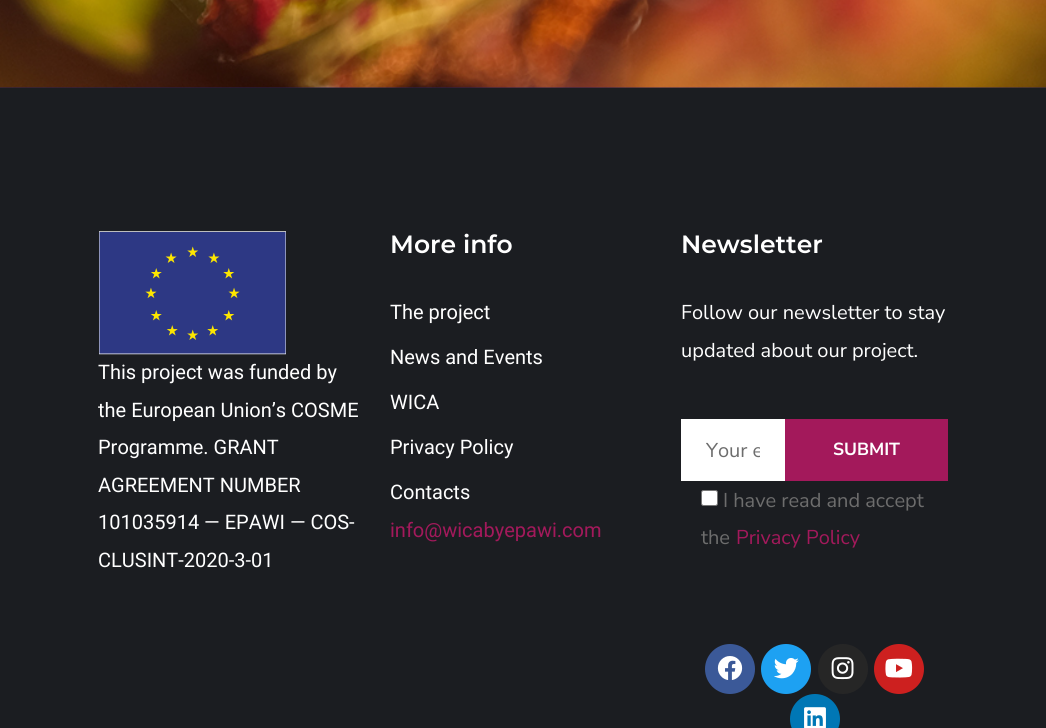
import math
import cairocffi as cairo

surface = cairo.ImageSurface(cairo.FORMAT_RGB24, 1046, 728)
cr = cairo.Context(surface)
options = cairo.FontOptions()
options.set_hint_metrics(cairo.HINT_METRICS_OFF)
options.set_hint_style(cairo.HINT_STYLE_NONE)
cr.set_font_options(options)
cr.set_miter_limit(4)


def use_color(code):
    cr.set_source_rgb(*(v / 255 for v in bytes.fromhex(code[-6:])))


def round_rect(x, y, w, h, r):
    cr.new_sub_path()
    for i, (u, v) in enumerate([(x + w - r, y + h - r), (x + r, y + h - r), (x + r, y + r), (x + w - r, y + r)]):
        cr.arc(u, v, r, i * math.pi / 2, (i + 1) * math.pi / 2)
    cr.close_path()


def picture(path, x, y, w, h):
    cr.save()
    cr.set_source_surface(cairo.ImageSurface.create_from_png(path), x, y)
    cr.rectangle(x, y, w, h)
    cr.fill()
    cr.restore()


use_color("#262051")
cr.paint()
picture("img1.png", 0, 0, 1046, 88)
use_color("#1b1d21")
cr.rectangle(0, 88, 1046, 640)
cr.fill()
picture("img2.png", 99, 231, 187, 124)
cr.select_font_face("Roboto")
cr.set_font_size(20)
use_color("#ffffff")
cr.move_to(98, 379)
cr.show_text("This project was funded by")
cr.move_to(98, 417)
cr.show_text("the European Union’s COSME")
cr.move_to(98, 454)
cr.show_text("Programme. GRANT")
cr.move_to(98, 492)
cr.show_text("AGREEMENT NUMBER")
cr.move_to(98, 529)
cr.show_text("101035914 — EPAWI — COS-")
cr.move_to(98, 567)
cr.show_text("CLUSINT-2020-3-01")
cr.select_font_face("Montserrat SemiBold")
cr.set_font_size(25)
cr.move_to(390, 253)
cr.show_text("More info")
cr.select_font_face("Roboto")
cr.set_font_size(20)
cr.move_to(390, 319)
cr.show_text("The project")
cr.move_to(390, 364)
cr.show_text("News and Events")
cr.move_to(390, 409)
cr.show_text("WICA")
cr.move_to(390, 454)
cr.show_text("Privacy Policy")
cr.move_to(390, 499)
cr.show_text("Contacts")
use_color("#a3195b")
cr.move_to(390, 537)
cr.show_text("info@wicabyepawi.com")
cr.select_font_face("Montserrat SemiBold")
cr.set_font_size(25)
use_color("#ffffff")
cr.move_to(681, 253)
cr.show_text("Newsletter")
cr.select_font_face("Nunito Sans")
cr.set_font_size(20)
cr.move_to(681, 319)
cr.show_text("Follow our newsletter to stay")
cr.move_to(681, 357)
cr.show_text("updated about our project.")
cr.rectangle(681, 419, 104, 62)
cr.fill()
cr.save()
cr.rectangle(706, 436, 54, 28)
cr.clip()
use_color("#6d6d6d")
cr.move_to(706, 457)
cr.show_text("Your e")
cr.restore()
use_color("#a3195b")
cr.rectangle(785, 419, 163, 62)
cr.fill()
cr.select_font_face("Nunito Sans", cairo.FONT_SLANT_NORMAL, cairo.FONT_WEIGHT_BOLD)
cr.set_font_size(17.5)
use_color("#ffffff")
cr.move_to(833, 455)
cr.show_text("SUBMIT")
round_rect(701.5, 490.5, 16, 15, 2)
cr.fill_preserve()
use_color("#767676")
cr.set_line_width(1)
cr.stroke()
cr.select_font_face("Nunito Sans")
cr.set_font_size(20)
use_color("#6d6d6d")
cr.move_to(723, 507)
cr.show_text("I have read and accept")
cr.move_to(701, 544)
cr.show_text("the")
use_color("#a3195b")
cr.move_to(736, 544)
cr.show_text("Privacy Policy")
use_color("#3b5998")
cr.new_path()
cr.arc(730, 669, 25, 0, 2 * math.pi)
cr.fill()
picture("img3.png", 717, 656, 26, 24)
use_color("#1da1f2")
cr.arc(786, 669, 25, 0, 2 * math.pi)
cr.fill()
picture("img4.png", 774, 658, 25, 21)
use_color("#262626")
cr.arc(843, 669, 25, 0, 2 * math.pi)
cr.fill()
picture("img5.png", 831, 657, 23, 23)
use_color("#cd201f")
cr.arc(899, 669, 25, 0, 2 * math.pi)
cr.fill()
picture("img6.png", 885, 658, 28, 20)
use_color("#0077b5")
cr.arc(815, 719, 25, 0, 2 * math.pi)
cr.fill()
picture("img7.png", 804, 707, 22, 21)
surface.write_to_png("result.png")
